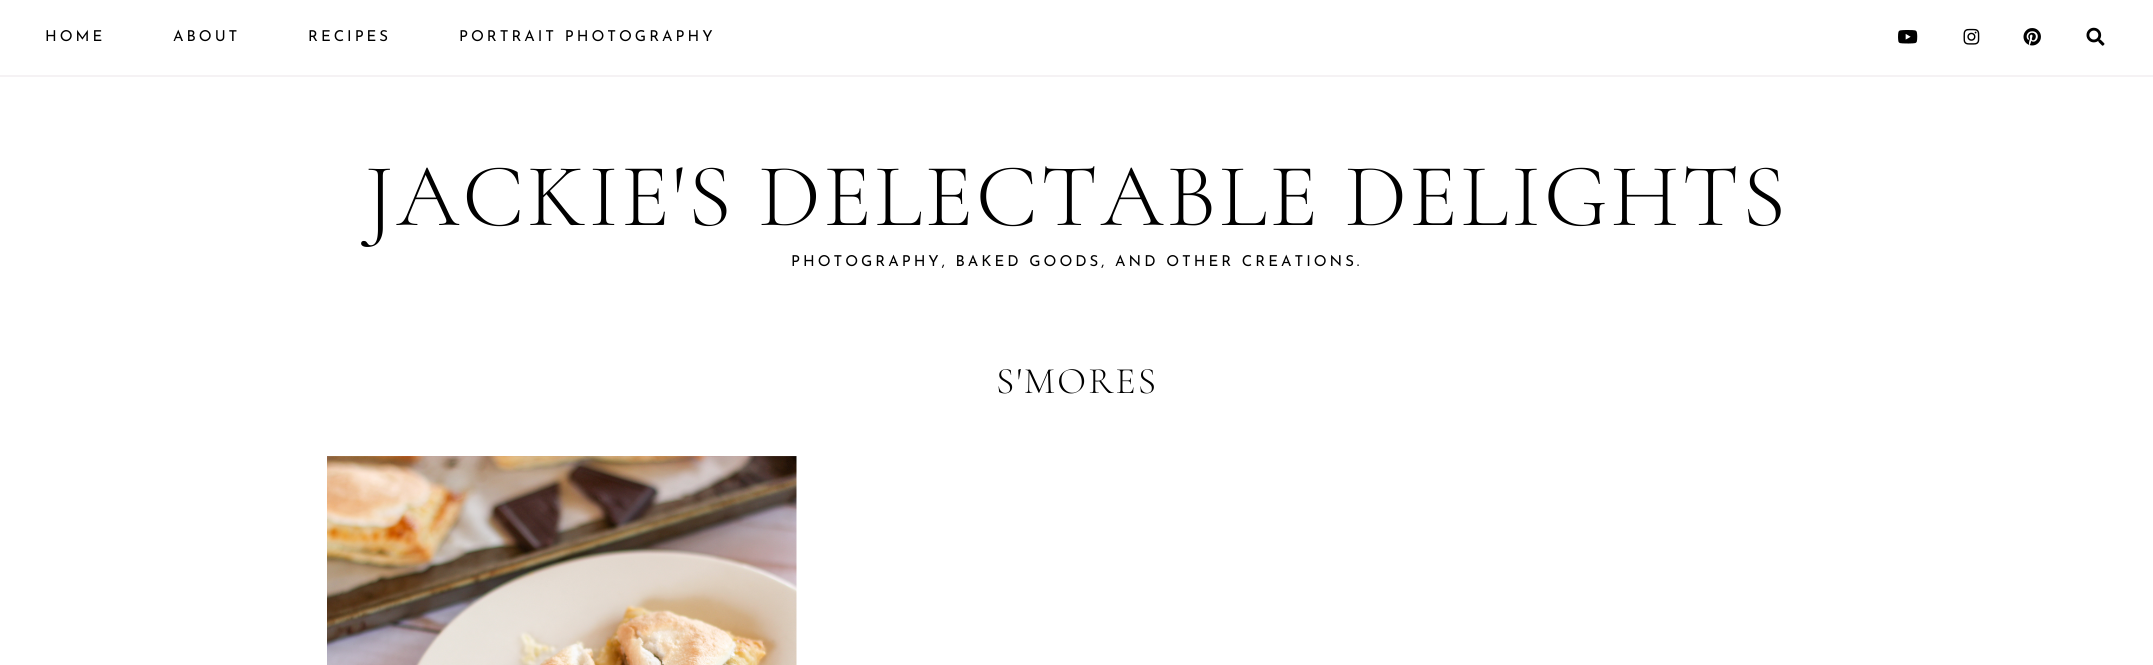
import math
import cairocffi as cairo

surface = cairo.ImageSurface(cairo.FORMAT_RGB24, 2153, 665)
cr = cairo.Context(surface)
options = cairo.FontOptions()
options.set_hint_metrics(cairo.HINT_METRICS_OFF)
options.set_hint_style(cairo.HINT_STYLE_NONE)
cr.set_font_options(options)
cr.set_miter_limit(4)


def use_color(code):
    cr.set_source_rgb(*(v / 255 for v in bytes.fromhex(code[-6:])))


def spaced_text(x, y, s, letter, word):
    cr.move_to(x, y)
    for ch in s:
        cr.show_text(ch)
        cr.rel_move_to(letter + word * (ch == ' '), 0)


def picture(path, x, y, w, h):
    cr.save()
    cr.set_source_surface(cairo.ImageSurface.create_from_png(path), x, y)
    cr.rectangle(x, y, w, h)
    cr.fill()
    cr.restore()


use_color("#ffffff")
cr.paint()
use_color("#f5f2f4")
cr.rectangle(0, 75, 2153, 2)
cr.fill()
cr.select_font_face("Josefin Sans")
cr.set_font_size(15)
use_color("#000000")
spaced_text(45, 41, "HOME", 3, 0)
spaced_text(173, 41, "ABOUT", 3, 0)
spaced_text(308, 41, "RECIPES", 3, 0)
spaced_text(459, 41, "PORTRAIT PHOTOGRAPHY", 3, 0)
picture("img1.png", 1898, 30, 20, 14)
picture("img2.png", 1963, 28, 17, 17)
picture("img3.png", 2023, 28, 18, 18)
picture("img4.png", 2086, 27, 19, 19)
cr.select_font_face("Cormorant Garamond Light")
cr.set_font_size(90)
spaced_text(365, 225, "JACKIE'S DELECTABLE DELIGHTS", 3, 0)
cr.select_font_face("Josefin Sans")
cr.set_font_size(15)
spaced_text(791, 266, "PHOTOGRAPHY, BAKED GOODS, AND OTHER CREATIONS.", 3, 0)
cr.select_font_face("Cormorant Garamond Light")
cr.set_font_size(37.5)
spaced_text(996, 393, "S'MORES", 2.25, 0)
picture("img5.png", 327, 456, 470, 209)
surface.write_to_png("result.png")
